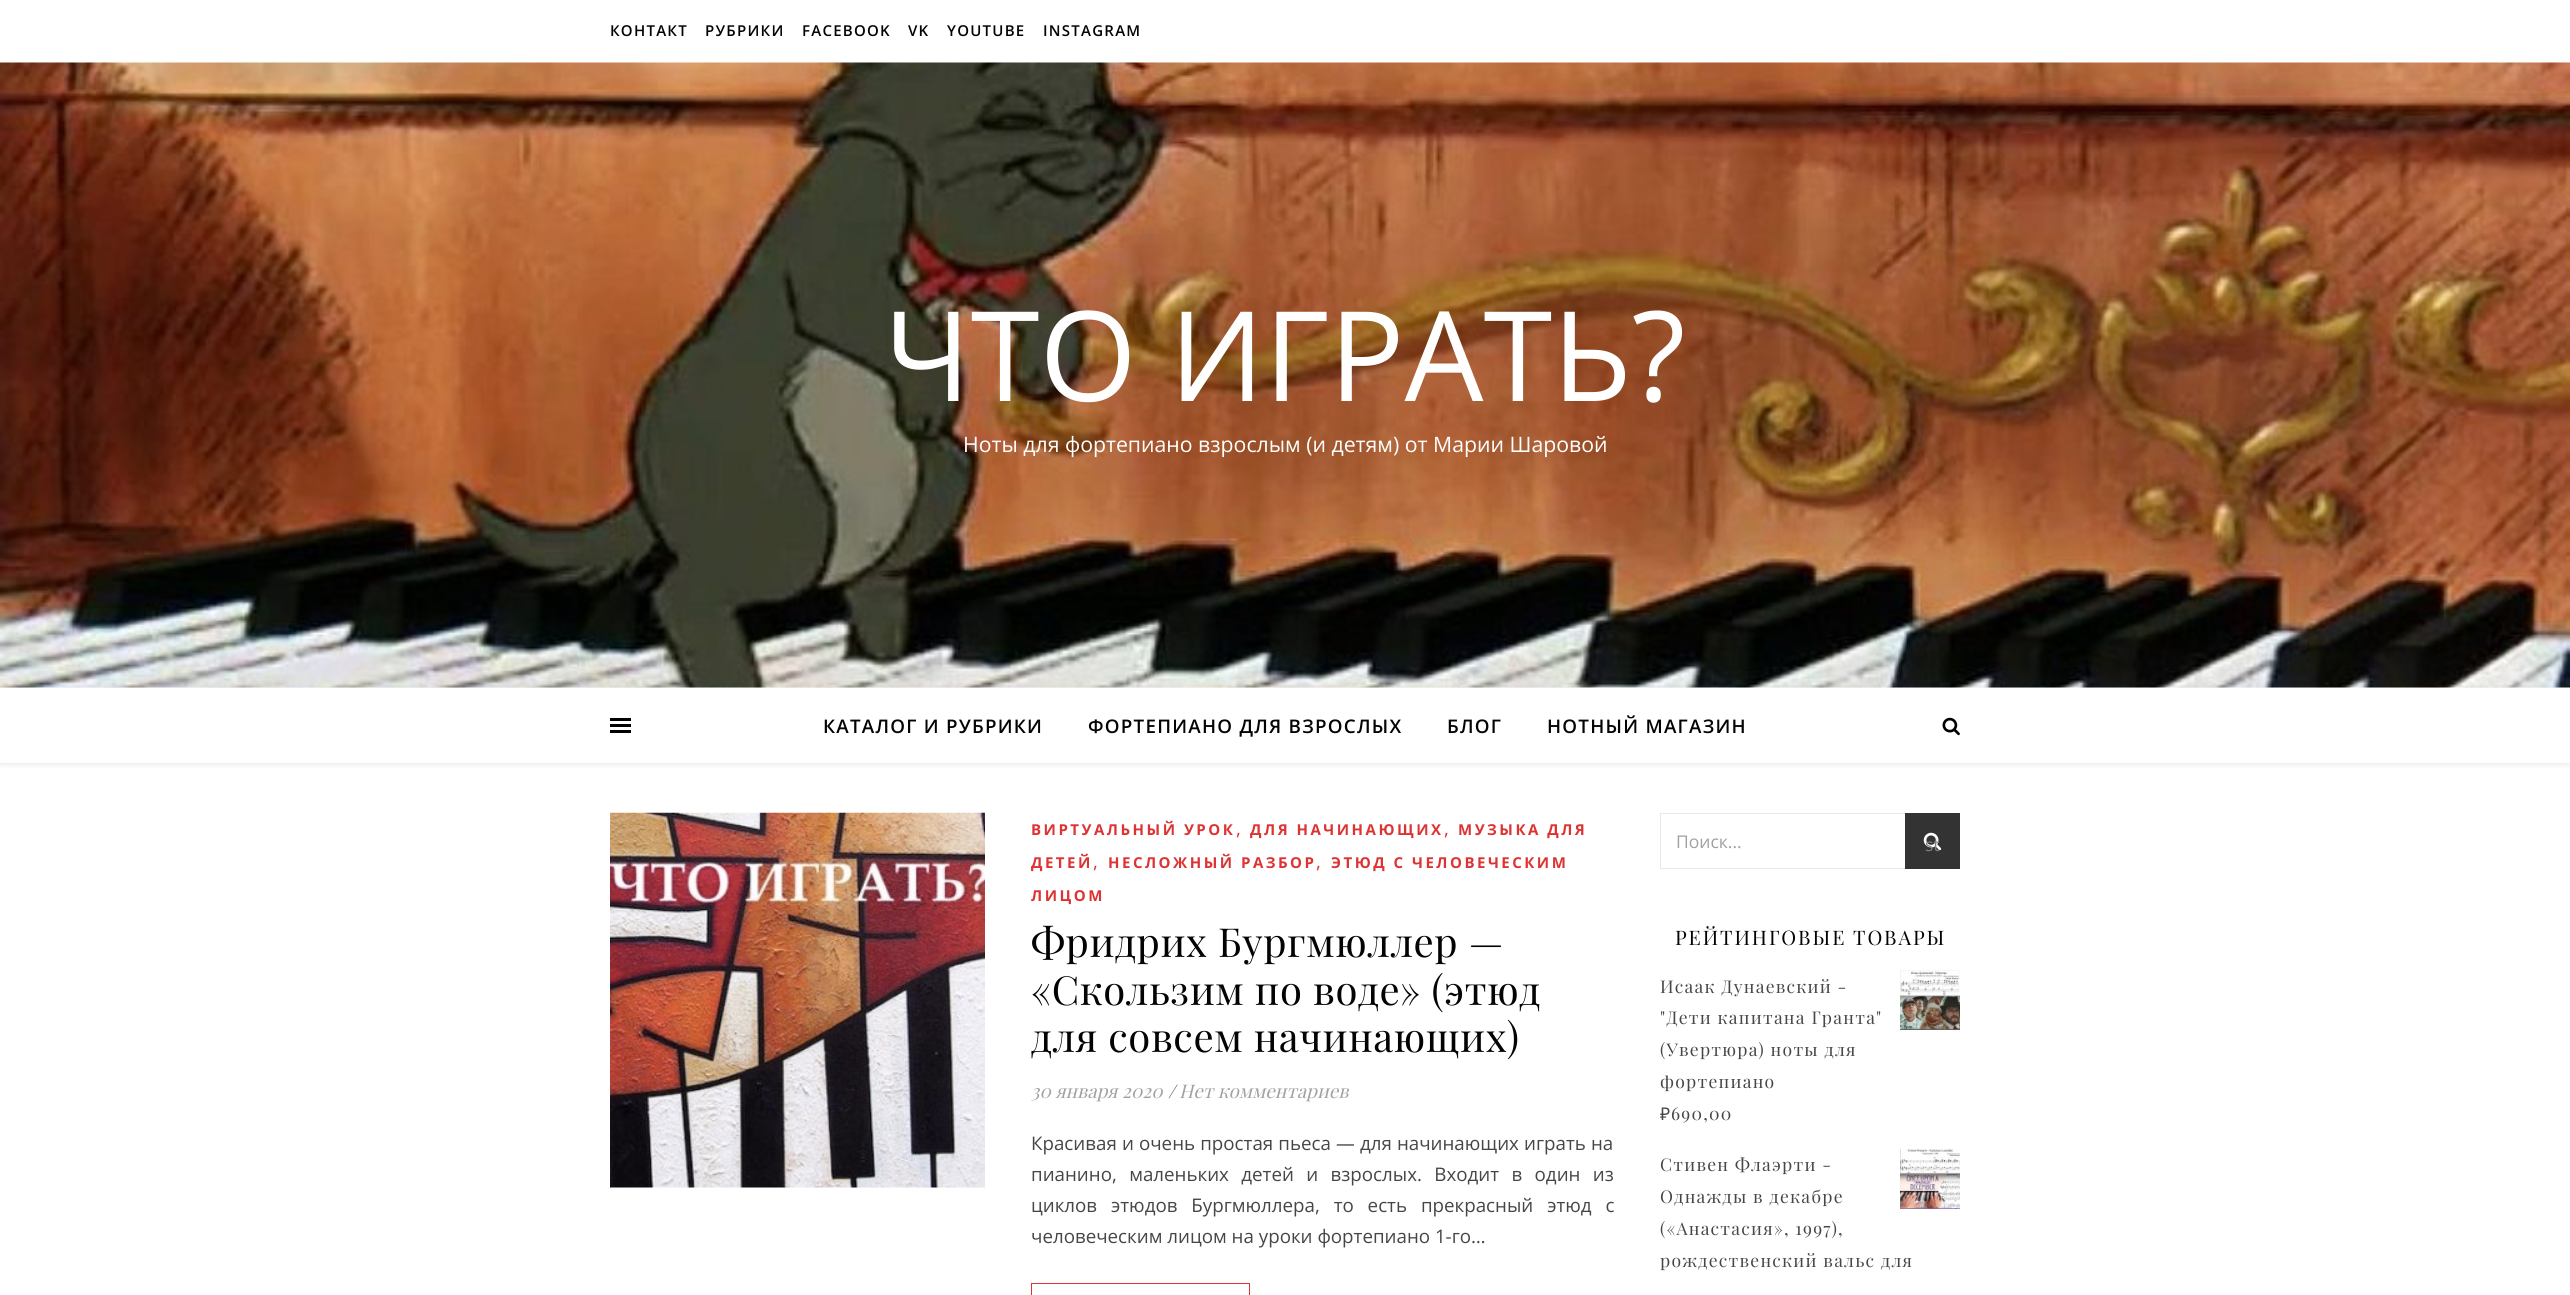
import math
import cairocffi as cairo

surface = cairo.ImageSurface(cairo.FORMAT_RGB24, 2570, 1295)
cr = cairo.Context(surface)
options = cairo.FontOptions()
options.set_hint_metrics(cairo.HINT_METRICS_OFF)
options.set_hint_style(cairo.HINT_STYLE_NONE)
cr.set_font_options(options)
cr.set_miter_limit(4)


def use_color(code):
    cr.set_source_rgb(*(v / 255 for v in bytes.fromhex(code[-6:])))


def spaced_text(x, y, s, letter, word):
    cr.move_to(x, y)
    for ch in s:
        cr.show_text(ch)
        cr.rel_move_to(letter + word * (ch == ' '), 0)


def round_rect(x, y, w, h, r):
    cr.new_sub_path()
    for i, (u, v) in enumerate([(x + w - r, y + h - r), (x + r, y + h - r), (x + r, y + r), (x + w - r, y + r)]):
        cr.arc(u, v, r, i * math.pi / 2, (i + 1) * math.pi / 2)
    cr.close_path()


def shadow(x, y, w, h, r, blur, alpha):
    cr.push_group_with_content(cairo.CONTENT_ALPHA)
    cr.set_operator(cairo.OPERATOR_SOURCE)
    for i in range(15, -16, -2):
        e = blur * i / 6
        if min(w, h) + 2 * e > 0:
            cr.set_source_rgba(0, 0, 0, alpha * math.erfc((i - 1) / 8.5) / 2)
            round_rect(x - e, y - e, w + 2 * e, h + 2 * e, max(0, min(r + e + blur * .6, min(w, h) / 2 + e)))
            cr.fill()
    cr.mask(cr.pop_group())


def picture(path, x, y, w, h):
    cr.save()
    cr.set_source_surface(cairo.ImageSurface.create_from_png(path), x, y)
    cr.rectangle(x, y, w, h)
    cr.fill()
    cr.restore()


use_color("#ffffff")
cr.paint()
cr.select_font_face("Open Sans SemiBold")
cr.set_font_size(15)
use_color("#030303")
spaced_text(610, 36, "КОНТАКТ", 1.25, 0)
spaced_text(705, 36, "РУБРИКИ", 1.25, 0)
spaced_text(802, 36, "FACEBOOK", 1.25, 0)
spaced_text(908, 36, "VK", 1.25, 0)
spaced_text(947, 36, "YOUTUBE", 1.25, 0)
spaced_text(1043, 36, "INSTAGRAM", 1.25, 0)
picture("img1.png", 0, 62, 2570, 626)
cr.select_font_face("Open Sans")
cr.set_font_size(125)
use_color("#ffffff")
cr.move_to(884, 401)
cr.show_text("ЧТО ИГРАТЬ?")
cr.set_font_size(21.25)
cr.move_to(963, 452)
cr.show_text("Ноты для фортепиано взрослым (и детям) от Марии Шаровой")
use_color("#000000")
shadow(0, 689, 2570, 75, 0, 3, 0.1)
use_color("#ffffff")
cr.rectangle(0, 688, 2570, 75)
cr.fill()
use_color("#000000")
cr.rectangle(610, 718, 21, 3)
cr.fill()
cr.rectangle(610, 724, 21, 3)
cr.fill()
cr.rectangle(610, 730, 21, 3)
cr.fill()
cr.select_font_face("Open Sans SemiBold")
cr.set_font_size(18.75)
use_color("#030303")
spaced_text(823, 733, "КАТАЛОГ И РУБРИКИ", 1.25, 0)
spaced_text(1088, 733, "ФОРТЕПИАНО ДЛЯ ВЗРОСЛЫХ", 1.25, 0)
spaced_text(1447, 733, "БЛОГ", 1.25, 0)
spaced_text(1547, 733, "НОТНЫЙ МАГАЗИН", 1.25, 0)
picture("img2.png", 1942, 717, 18, 19)
picture("img3.png", 610, 812, 375, 376)
cr.select_font_face("Open Sans", cairo.FONT_SLANT_NORMAL, cairo.FONT_WEIGHT_BOLD)
cr.set_font_size(15)
use_color("#dd3333")
spaced_text(1031, 835, "ВИРТУАЛЬНЫЙ УРОК", 2.5, 0)
cr.select_font_face("Open Sans")
cr.set_font_size(18.75)
cr.move_to(1236, 835)
cr.show_text(",")
cr.select_font_face("Open Sans", cairo.FONT_SLANT_NORMAL, cairo.FONT_WEIGHT_BOLD)
cr.set_font_size(15)
spaced_text(1250, 835, "ДЛЯ НАЧИНАЮЩИХ", 2.5, 0)
cr.select_font_face("Open Sans")
cr.set_font_size(18.75)
cr.move_to(1444, 835)
cr.show_text(",")
cr.select_font_face("Open Sans", cairo.FONT_SLANT_NORMAL, cairo.FONT_WEIGHT_BOLD)
cr.set_font_size(15)
spaced_text(1458, 835, "МУЗЫКА ДЛЯ", 2.5, 0)
spaced_text(1031, 868, "ДЕТЕЙ", 2.5, 0)
cr.select_font_face("Open Sans")
cr.set_font_size(18.75)
cr.move_to(1093, 868)
cr.show_text(",")
cr.select_font_face("Open Sans", cairo.FONT_SLANT_NORMAL, cairo.FONT_WEIGHT_BOLD)
cr.set_font_size(15)
spaced_text(1108, 868, "НЕСЛОЖНЫЙ РАЗБОР", 2.5, 0)
cr.select_font_face("Open Sans")
cr.set_font_size(18.75)
cr.move_to(1316, 868)
cr.show_text(",")
cr.select_font_face("Open Sans", cairo.FONT_SLANT_NORMAL, cairo.FONT_WEIGHT_BOLD)
cr.set_font_size(15)
spaced_text(1331, 868, "ЭТЮД С ЧЕЛОВЕЧЕСКИМ", 2.5, 0)
spaced_text(1031, 901, "ЛИЦОМ", 2.5, 0)
cr.select_font_face("Playfair Display")
cr.set_font_size(40)
use_color("#030303")
spaced_text(1031, 957, "Фридрих Бургмюллер —", 0.6, 0)
spaced_text(1031, 1005, "«Скользим по воде» (этюд", 0.6, 0)
spaced_text(1031, 1052, "для совсем начинающих)", 0.6, 0)
cr.select_font_face("Playfair Display", cairo.FONT_SLANT_ITALIC)
cr.set_font_size(18.75)
use_color("#a1a1a1")
cr.move_to(1031, 1098)
cr.show_text("30 января 2020")
use_color("#464646")
cr.move_to(1168, 1098)
cr.show_text("/")
use_color("#a1a1a1")
cr.move_to(1179, 1098)
cr.show_text("Нет комментариев")
cr.select_font_face("Open Sans")
use_color("#464646")
spaced_text(1031, 1150, "Красивая и очень простая пьеса — для начинающих играть на", 0, 0.25)
spaced_text(1031, 1181, "пианино, маленьких детей и взрослых. Входит в один из", 0, 7.5)
spaced_text(1031, 1212, "циклов этюдов Бургмюллера, то есть прекрасный этюд с", 0, 9)
cr.move_to(1031, 1243)
cr.show_text("человеческим лицом на уроки фортепиано 1-го…")
cr.rectangle(1031.5, 1283.5, 218, 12)
use_color("#dd3333")
cr.set_line_width(1)
cr.stroke()
cr.rectangle(1660.5, 813.5, 299, 55)
use_color("#e8e8e8")
cr.stroke()
cr.set_font_size(17.5)
use_color("#a1a1a1")
cr.move_to(1676, 848)
cr.show_text("Поиск...")
use_color("#333333")
cr.rectangle(1905, 813, 55, 56)
cr.fill()
picture("img4.png", 1923, 832, 19, 19)
use_color("#818181")
cr.move_to(1925, 851)
cr.show_text("st")
cr.select_font_face("Playfair Display")
cr.set_font_size(20)
use_color("#030303")
spaced_text(1675, 945, "РЕЙТИНГОВЫЕ ТОВАРЫ", 1.9, 0)
cr.set_font_size(17.5)
use_color("#464646")
spaced_text(1660, 993, "Исаак Дунаевский -", 1.25, 0)
picture("img5.png", 1900, 970, 60, 60)
spaced_text(1660, 1024, "\"Дети капитана Гранта\"", 1.25, 0)
spaced_text(1660, 1056, "(Увертюра) ноты для", 1.25, 0)
spaced_text(1660, 1088, "фортепиано", 1.25, 0)
cr.select_font_face("Noto Sans")
spaced_text(1660, 1120, "₽", 1.25, 0)
cr.select_font_face("Playfair Display")
spaced_text(1671, 1120, "690,00", 1.25, 0)
spaced_text(1660, 1171, "Стивен Флаэрти -", 1.25, 0)
picture("img6.png", 1900, 1148, 60, 61)
spaced_text(1660, 1203, "Однажды в декабре", 1.25, 0)
spaced_text(1660, 1235, "(«Анастасия», 1997),", 1.25, 0)
spaced_text(1660, 1267, "рождественский вальс для", 1.25, 0)
surface.write_to_png("result.png")
